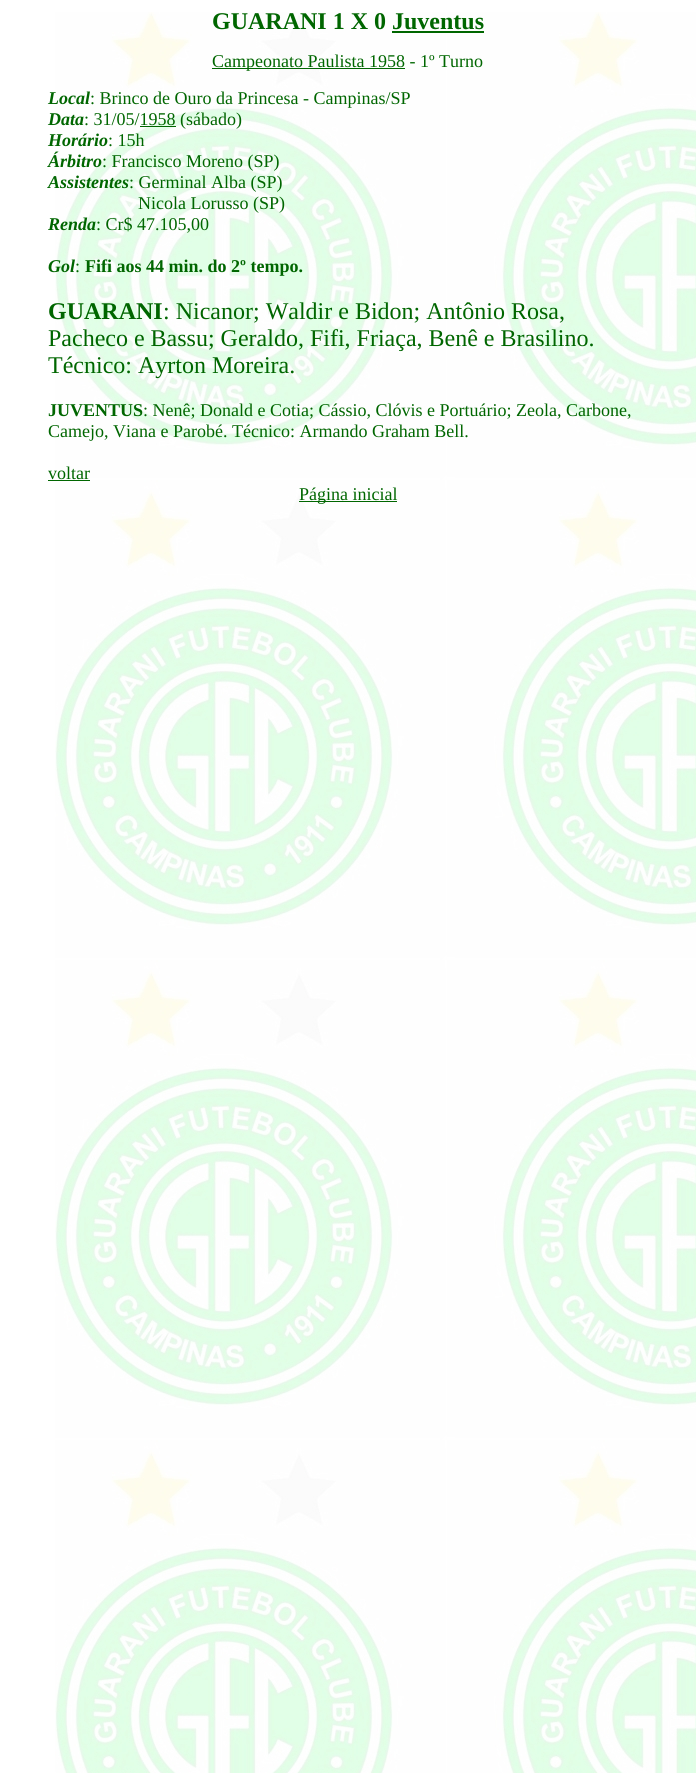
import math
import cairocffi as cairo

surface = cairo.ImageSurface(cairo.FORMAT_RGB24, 696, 1773)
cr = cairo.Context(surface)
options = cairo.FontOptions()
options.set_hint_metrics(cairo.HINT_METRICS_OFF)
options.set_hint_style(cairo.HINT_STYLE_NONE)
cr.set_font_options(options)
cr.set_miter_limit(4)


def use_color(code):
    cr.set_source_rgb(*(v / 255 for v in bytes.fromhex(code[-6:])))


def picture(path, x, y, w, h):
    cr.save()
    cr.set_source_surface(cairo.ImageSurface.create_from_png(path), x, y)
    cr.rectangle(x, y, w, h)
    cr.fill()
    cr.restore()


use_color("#ffffff")
cr.paint()
picture("img1.png", 55, 12, 641, 1761)
cr.select_font_face("Liberation Serif", cairo.FONT_SLANT_NORMAL, cairo.FONT_WEIGHT_BOLD)
cr.set_font_size(24)
use_color("#006600")
cr.move_to(212, 29)
cr.show_text("GUARANI 1 X 0 Juventus")
cr.rectangle(392, 31, 92, 2)
cr.fill()
cr.rectangle(212, 68, 193, 1)
cr.fill()
cr.select_font_face("Liberation Serif")
cr.set_font_size(18)
cr.move_to(212, 67)
cr.show_text("Campeonato Paulista 1958 - 1º Turno")
cr.select_font_face("Liberation Serif", cairo.FONT_SLANT_ITALIC, cairo.FONT_WEIGHT_BOLD)
cr.move_to(48, 104)
cr.show_text("Local")
cr.select_font_face("Liberation Serif")
cr.move_to(90, 104)
cr.show_text(": Brinco de Ouro da Princesa - Campinas/SP")
cr.select_font_face("Liberation Serif", cairo.FONT_SLANT_ITALIC, cairo.FONT_WEIGHT_BOLD)
cr.move_to(48, 125)
cr.show_text("Data")
cr.select_font_face("Liberation Serif")
cr.move_to(84, 125)
cr.show_text(": 31/05/1958 (sábado)")
cr.rectangle(140, 126, 36, 1)
cr.fill()
cr.select_font_face("Liberation Serif", cairo.FONT_SLANT_ITALIC, cairo.FONT_WEIGHT_BOLD)
cr.move_to(48, 146)
cr.show_text("Horário")
cr.select_font_face("Liberation Serif")
cr.move_to(108, 146)
cr.show_text(": 15h")
cr.select_font_face("Liberation Serif", cairo.FONT_SLANT_ITALIC, cairo.FONT_WEIGHT_BOLD)
cr.move_to(48, 167)
cr.show_text("Árbitro")
cr.select_font_face("Liberation Serif")
cr.move_to(102, 167)
cr.show_text(": Francisco Moreno (SP)")
cr.select_font_face("Liberation Serif", cairo.FONT_SLANT_ITALIC, cairo.FONT_WEIGHT_BOLD)
cr.move_to(48, 188)
cr.show_text("Assistentes")
cr.select_font_face("Liberation Serif")
cr.move_to(129, 188)
cr.show_text(": Germinal Alba (SP)")
cr.move_to(138, 209)
cr.show_text("Nicola Lorusso (SP)")
cr.select_font_face("Liberation Serif", cairo.FONT_SLANT_ITALIC, cairo.FONT_WEIGHT_BOLD)
cr.move_to(48, 230)
cr.show_text("Renda")
cr.select_font_face("Liberation Serif")
cr.move_to(96, 230)
cr.show_text(": Cr$ 47.105,00")
cr.select_font_face("Liberation Serif", cairo.FONT_SLANT_ITALIC, cairo.FONT_WEIGHT_BOLD)
cr.move_to(48, 272)
cr.show_text("Gol")
cr.select_font_face("Liberation Serif")
cr.move_to(75, 272)
cr.show_text(":")
cr.select_font_face("Liberation Serif", cairo.FONT_SLANT_NORMAL, cairo.FONT_WEIGHT_BOLD)
cr.move_to(85, 272)
cr.show_text("Fifi aos 44 min. do 2º tempo.")
cr.set_font_size(24)
cr.move_to(48, 319)
cr.show_text("GUARANI")
cr.select_font_face("Liberation Serif")
cr.move_to(163, 319)
cr.show_text(": Nicanor; Waldir e Bidon; Antônio Rosa,")
cr.move_to(48, 346)
cr.show_text("Pacheco e Bassu; Geraldo, Fifi, Friaça, Benê e Brasilino.")
cr.move_to(48, 373)
cr.show_text("Técnico: Ayrton Moreira.")
cr.select_font_face("Liberation Serif", cairo.FONT_SLANT_NORMAL, cairo.FONT_WEIGHT_BOLD)
cr.set_font_size(18)
cr.move_to(48, 416)
cr.show_text("JUVENTUS")
cr.select_font_face("Liberation Serif")
cr.move_to(143, 416)
cr.show_text(": Nenê; Donald e Cotia; Cássio, Clóvis e Portuário; Zeola, Carbone,")
cr.move_to(48, 437)
cr.show_text("Camejo, Viana e Parobé. Técnico: Armando Graham Bell.")
cr.move_to(48, 479)
cr.show_text("voltar")
cr.rectangle(48, 480, 42, 1)
cr.fill()
cr.rectangle(299, 501, 98, 1)
cr.fill()
cr.move_to(299, 500)
cr.show_text("Página inicial")
surface.write_to_png("result.png")
